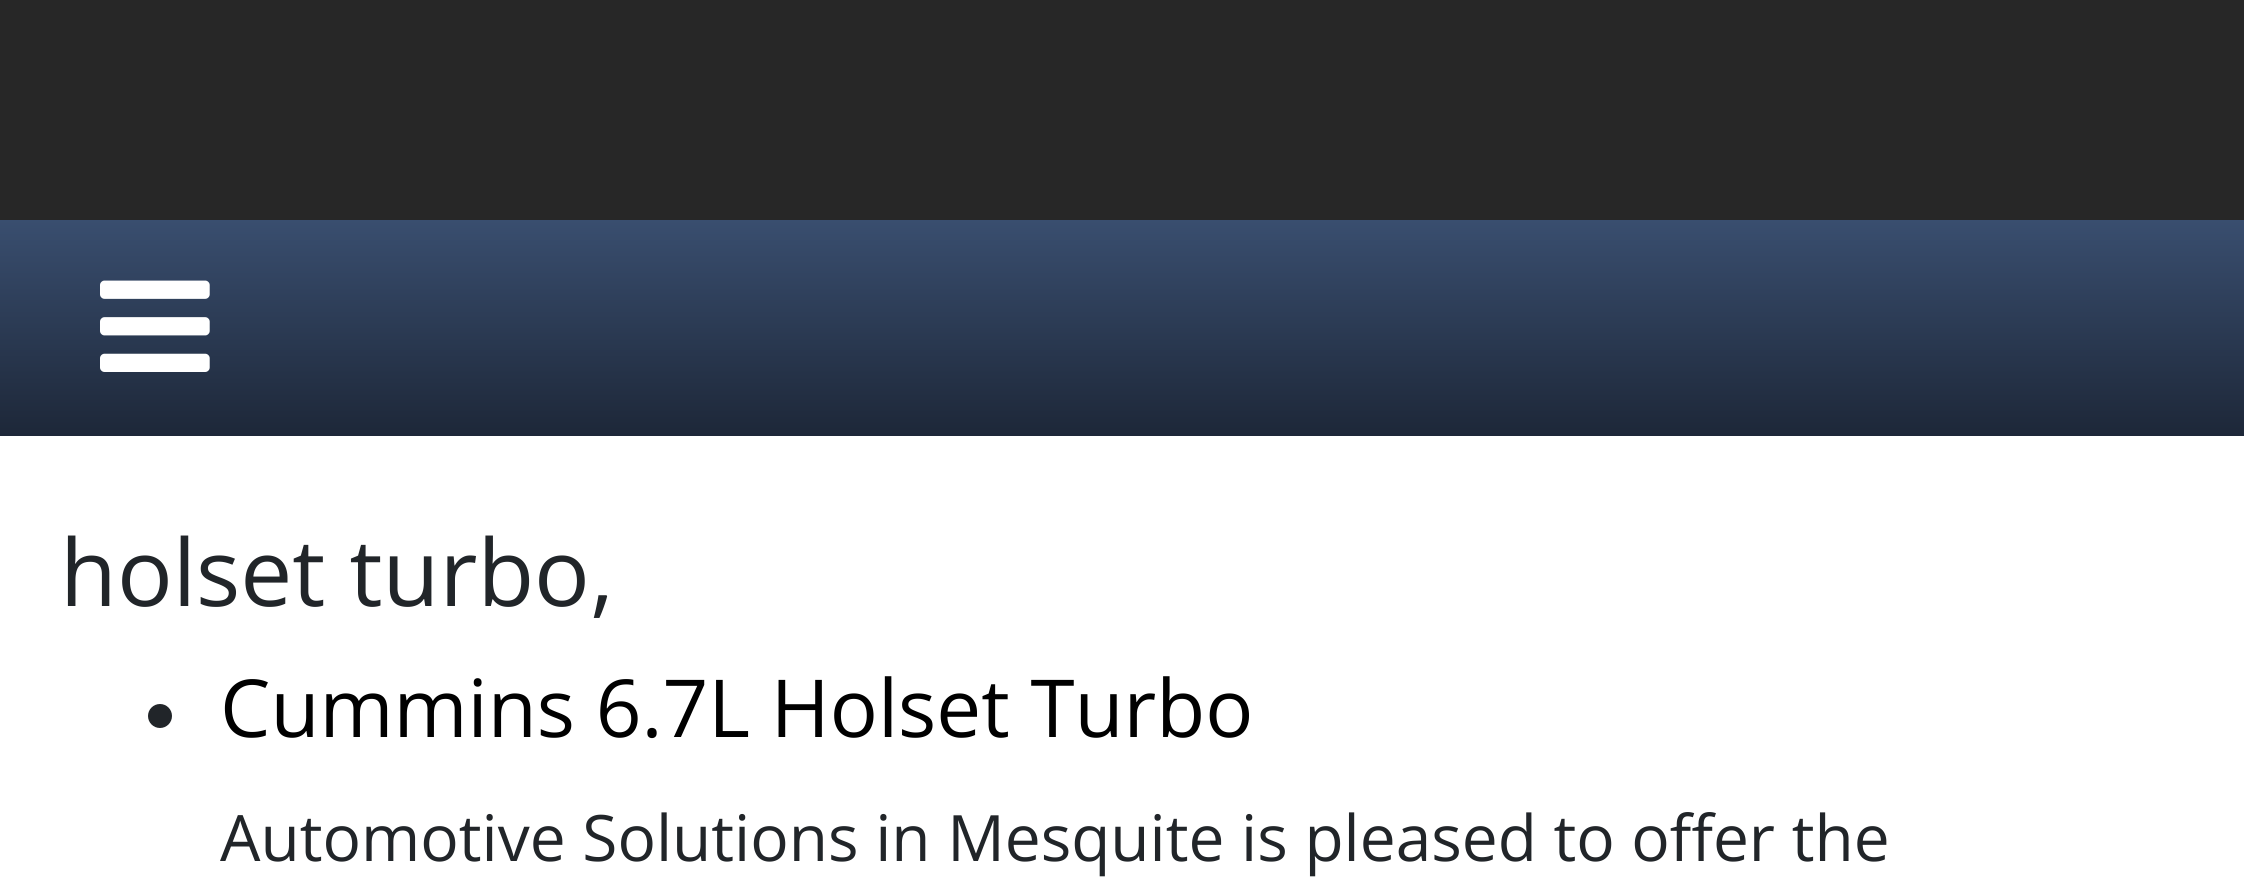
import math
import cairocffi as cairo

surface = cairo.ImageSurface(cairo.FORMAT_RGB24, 2244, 888)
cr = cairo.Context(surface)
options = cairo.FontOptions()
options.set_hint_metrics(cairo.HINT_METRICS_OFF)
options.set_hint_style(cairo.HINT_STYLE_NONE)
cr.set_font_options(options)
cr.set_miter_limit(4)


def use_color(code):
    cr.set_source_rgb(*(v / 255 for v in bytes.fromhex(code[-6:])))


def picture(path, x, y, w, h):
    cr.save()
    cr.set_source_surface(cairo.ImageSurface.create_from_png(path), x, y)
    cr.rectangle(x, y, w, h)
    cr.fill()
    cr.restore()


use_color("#272727")
cr.paint()
gradient = cairo.LinearGradient(1122, 220, 1122, 436)
gradient.add_color_stop_rgba(0, 0.224, 0.306, 0.435, 1)
gradient.add_color_stop_rgba(1, 0.114, 0.153, 0.22, 1)
cr.set_source(gradient)
cr.rectangle(0, 220, 2244, 216)
cr.fill()
picture("img1.png", 100, 280, 110, 92)
use_color("#ffffff")
cr.rectangle(0, 436, 2244, 452)
cr.fill()
cr.select_font_face("Open Sans")
cr.set_font_size(92.75)
use_color("#212529")
cr.move_to(60, 606)
cr.show_text("holset turbo,")
cr.new_path()
cr.arc(160, 716, 12, 0, 2 * math.pi)
cr.fill()
cr.set_font_size(80)
use_color("#000000")
cr.move_to(220, 737)
cr.show_text("Cummins 6.7L Holset Turbo")
cr.set_font_size(64)
use_color("#212529")
cr.move_to(220, 861)
cr.show_text("Automotive Solutions in Mesquite is pleased to offer the")
surface.write_to_png("result.png")
